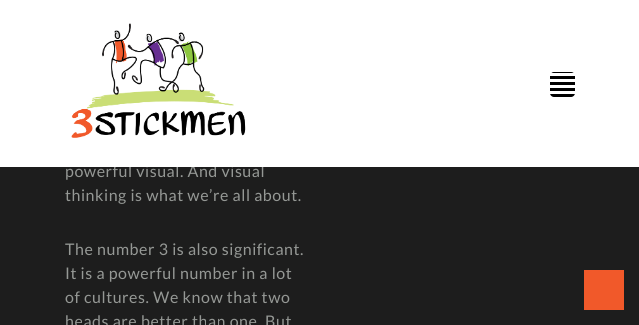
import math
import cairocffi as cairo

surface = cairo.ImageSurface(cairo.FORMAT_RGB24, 639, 325)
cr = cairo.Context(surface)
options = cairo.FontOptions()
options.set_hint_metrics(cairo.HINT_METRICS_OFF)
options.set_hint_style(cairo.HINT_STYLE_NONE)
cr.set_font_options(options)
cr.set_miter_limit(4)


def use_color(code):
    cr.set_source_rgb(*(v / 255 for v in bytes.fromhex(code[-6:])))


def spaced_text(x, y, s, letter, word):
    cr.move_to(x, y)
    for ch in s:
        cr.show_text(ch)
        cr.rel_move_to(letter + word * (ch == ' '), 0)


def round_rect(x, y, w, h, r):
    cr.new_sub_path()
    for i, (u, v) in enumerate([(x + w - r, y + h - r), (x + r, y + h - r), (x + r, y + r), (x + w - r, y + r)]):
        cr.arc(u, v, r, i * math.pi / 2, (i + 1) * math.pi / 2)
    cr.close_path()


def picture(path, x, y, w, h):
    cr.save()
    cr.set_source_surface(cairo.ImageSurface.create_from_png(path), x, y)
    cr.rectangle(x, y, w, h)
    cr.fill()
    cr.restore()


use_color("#1d1d1d")
cr.paint()
cr.select_font_face("Lato")
cr.set_font_size(16)
use_color("#959895")
spaced_text(65, 177, "powerful visual. And visual", 0.55, 0)
use_color("#ffffff")
cr.rectangle(0, 0, 639, 167)
cr.fill()
picture("img1.png", 71, 23, 175, 115)
use_color("#000000")
round_rect(550, 72, 25, 25, 4)
cr.fill()
use_color("#ffffff")
cr.rectangle(550, 73, 25, 3)
cr.fill()
cr.rectangle(550, 79, 25, 3)
cr.fill()
cr.rectangle(550, 85, 25, 3)
cr.fill()
cr.rectangle(550, 91, 25, 3)
cr.fill()
use_color("#959895")
spaced_text(65, 201, "thinking is what we’re all about.", 0.55, 0)
spaced_text(65, 255, "The number 3 is also significant.", 0.55, 0)
spaced_text(65, 279, "It is a powerful number in a lot", 0.55, 0)
spaced_text(65, 303, "of cultures. We know that two", 0.55, 0)
spaced_text(65, 327, "heads are better than one. But", 0.55, 0)
use_color("#f1592a")
cr.rectangle(584, 270, 40, 40)
cr.fill()
surface.write_to_png("result.png")
